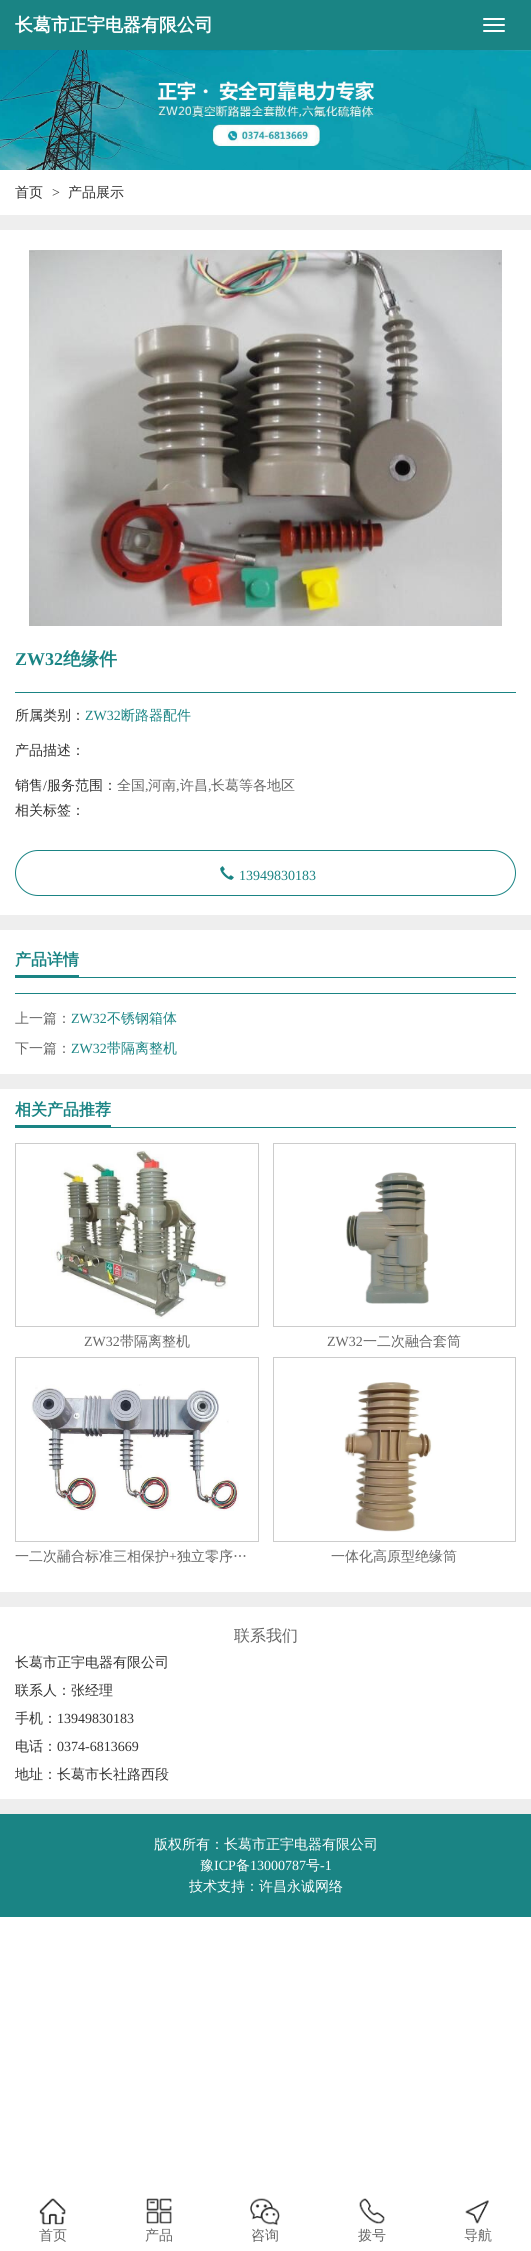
import math
import cairocffi as cairo

surface = cairo.ImageSurface(cairo.FORMAT_RGB24, 531, 2251)
cr = cairo.Context(surface)
options = cairo.FontOptions()
options.set_hint_metrics(cairo.HINT_METRICS_OFF)
options.set_hint_style(cairo.HINT_STYLE_NONE)
cr.set_font_options(options)
cr.set_miter_limit(4)


def use_color(code):
    cr.set_source_rgb(*(v / 255 for v in bytes.fromhex(code[-6:])))


def round_rect(x, y, w, h, r):
    cr.new_sub_path()
    for i, (u, v) in enumerate([(x + w - r, y + h - r), (x + r, y + h - r), (x + r, y + r), (x + w - r, y + r)]):
        cr.arc(u, v, r, i * math.pi / 2, (i + 1) * math.pi / 2)
    cr.close_path()


def picture(path, x, y, w, h):
    cr.save()
    cr.set_source_surface(cairo.ImageSurface.create_from_png(path), x, y)
    cr.rectangle(x, y, w, h)
    cr.fill()
    cr.restore()


use_color("#ffffff")
cr.paint()
use_color("#1a8484")
cr.rectangle(0, 0, 531, 50)
cr.fill()
cr.select_font_face("WenQuanYi Zen Hei", cairo.FONT_SLANT_NORMAL, cairo.FONT_WEIGHT_BOLD)
cr.set_font_size(18)
use_color("#ffffff")
cr.move_to(15, 31)
cr.show_text("长葛市正宇电器有限公司")
round_rect(483, 18, 22, 2, 1)
cr.fill()
round_rect(483, 24, 22, 2, 1)
cr.fill()
round_rect(483, 30, 22, 2, 1)
cr.fill()
picture("img1.png", 0, 50, 531, 120)
cr.select_font_face("WenQuanYi Zen Hei Medium")
cr.set_font_size(14)
use_color("#333333")
cr.move_to(15, 197)
cr.show_text("首页")
cr.select_font_face("Liberation Serif")
cr.move_to(52, 197)
cr.show_text(">")
cr.select_font_face("WenQuanYi Zen Hei Medium")
cr.move_to(68, 197)
cr.show_text("产品展示")
use_color("#eeeeee")
cr.rectangle(0, 215, 531, 15)
cr.fill()
cr.rectangle(0, 915, 531, 15)
cr.fill()
picture("img2.png", 29, 250, 473, 376)
use_color("#1a8484")
cr.rectangle(15, 692, 501, 1)
cr.fill()
cr.select_font_face("Liberation Serif", cairo.FONT_SLANT_NORMAL, cairo.FONT_WEIGHT_BOLD)
cr.set_font_size(18)
cr.move_to(15, 665)
cr.show_text("ZW32")
cr.select_font_face("WenQuanYi Zen Hei", cairo.FONT_SLANT_NORMAL, cairo.FONT_WEIGHT_BOLD)
cr.move_to(63, 665)
cr.show_text("绝缘件")
cr.select_font_face("WenQuanYi Zen Hei Medium")
cr.set_font_size(14)
use_color("#333333")
cr.move_to(15, 720)
cr.show_text("所属类别：")
cr.select_font_face("Liberation Serif")
use_color("#1a8484")
cr.move_to(85, 720)
cr.show_text("ZW32")
cr.select_font_face("WenQuanYi Zen Hei Medium")
cr.move_to(121, 720)
cr.show_text("断路器配件")
use_color("#333333")
cr.move_to(15, 755)
cr.show_text("产品描述：")
cr.move_to(15, 790)
cr.show_text("销售")
cr.select_font_face("Liberation Serif")
cr.move_to(43, 790)
cr.show_text("/")
cr.select_font_face("WenQuanYi Zen Hei Medium")
cr.move_to(47, 790)
cr.show_text("服务范围：")
use_color("#666666")
cr.move_to(117, 790)
cr.show_text("全国")
cr.select_font_face("Liberation Serif")
cr.move_to(145, 790)
cr.show_text(",")
cr.select_font_face("WenQuanYi Zen Hei Medium")
cr.move_to(148, 790)
cr.show_text("河南")
cr.select_font_face("Liberation Serif")
cr.move_to(176, 790)
cr.show_text(",")
cr.select_font_face("WenQuanYi Zen Hei Medium")
cr.move_to(180, 790)
cr.show_text("许昌")
cr.select_font_face("Liberation Serif")
cr.move_to(208, 790)
cr.show_text(",")
cr.select_font_face("WenQuanYi Zen Hei Medium")
cr.move_to(211, 790)
cr.show_text("长葛等各地区")
use_color("#333333")
cr.move_to(15, 815)
cr.show_text("相关标签：")
round_rect(15.5, 850.5, 500, 45, 22.5)
use_color("#1a8484")
cr.set_line_width(1)
cr.stroke()
picture("img3.png", 220, 866, 14, 14)
cr.select_font_face("Liberation Serif")
cr.move_to(239, 880)
cr.show_text("13949830183")
cr.rectangle(15, 977, 501, 1)
cr.fill()
cr.rectangle(15, 975, 64, 2)
cr.fill()
cr.select_font_face("WenQuanYi Zen Hei", cairo.FONT_SLANT_NORMAL, cairo.FONT_WEIGHT_BOLD)
cr.set_font_size(16)
cr.move_to(15, 965)
cr.show_text("产品详情")
cr.rectangle(15, 993, 501, 1)
cr.fill()
cr.select_font_face("WenQuanYi Zen Hei Medium")
cr.set_font_size(14)
use_color("#666666")
cr.move_to(15, 1023)
cr.show_text("上一篇：")
cr.select_font_face("Liberation Serif")
use_color("#1a8484")
cr.move_to(71, 1023)
cr.show_text("ZW32")
cr.select_font_face("WenQuanYi Zen Hei Medium")
cr.move_to(107, 1023)
cr.show_text("不锈钢箱体")
use_color("#666666")
cr.move_to(15, 1053)
cr.show_text("下一篇：")
cr.select_font_face("Liberation Serif")
use_color("#1a8484")
cr.move_to(71, 1053)
cr.show_text("ZW32")
cr.select_font_face("WenQuanYi Zen Hei Medium")
cr.move_to(107, 1053)
cr.show_text("带隔离整机")
use_color("#eeeeee")
cr.rectangle(0, 1074, 531, 15)
cr.fill()
use_color("#1a8484")
cr.rectangle(15, 1127, 501, 1)
cr.fill()
cr.rectangle(15, 1125, 96, 2)
cr.fill()
cr.select_font_face("WenQuanYi Zen Hei", cairo.FONT_SLANT_NORMAL, cairo.FONT_WEIGHT_BOLD)
cr.set_font_size(16)
cr.move_to(15, 1115)
cr.show_text("相关产品推荐")
cr.rectangle(15.5, 1143.5, 243, 183)
use_color("#cccccc")
cr.stroke()
picture("img4.png", 51, 1150, 177, 169)
cr.select_font_face("Liberation Serif")
cr.set_font_size(14)
use_color("#666666")
cr.move_to(84, 1346)
cr.show_text("ZW32")
cr.select_font_face("WenQuanYi Zen Hei Medium")
cr.move_to(120, 1346)
cr.show_text("带隔离整机")
cr.rectangle(273.5, 1143.5, 242, 183)
use_color("#cccccc")
cr.stroke()
picture("img5.png", 346, 1172, 83, 132)
cr.select_font_face("Liberation Serif")
use_color("#666666")
cr.move_to(327, 1346)
cr.show_text("ZW32")
cr.select_font_face("WenQuanYi Zen Hei Medium")
cr.move_to(363, 1346)
cr.show_text("一二次融合套筒")
cr.rectangle(15.5, 1357.5, 243, 184)
use_color("#cccccc")
cr.stroke()
picture("img6.png", 31, 1384, 208, 127)
use_color("#666666")
cr.move_to(15, 1561)
cr.show_text("一二次鬴合标准三相保护")
cr.select_font_face("Liberation Serif")
cr.move_to(169, 1561)
cr.show_text("+")
cr.select_font_face("WenQuanYi Zen Hei Medium")
cr.move_to(177, 1561)
cr.show_text("独立零序…")
cr.rectangle(273.5, 1357.5, 242, 184)
use_color("#cccccc")
cr.stroke()
picture("img7.png", 344, 1382, 88, 150)
use_color("#666666")
cr.move_to(331, 1561)
cr.show_text("一体化高原型绝缘筒")
use_color("#1a8484")
cr.rectangle(0, 1814, 531, 103)
cr.fill()
use_color("#eeeeee")
cr.rectangle(0, 1592, 531, 15)
cr.fill()
cr.set_font_size(16)
use_color("#666666")
cr.move_to(234, 1641)
cr.show_text("联系我们")
cr.set_font_size(14)
use_color("#333333")
cr.move_to(15, 1667)
cr.show_text("长葛市正宇电器有限公司")
cr.move_to(15, 1695)
cr.show_text("联系人：张经理")
cr.move_to(15, 1723)
cr.show_text("手机：")
cr.select_font_face("Liberation Serif")
cr.move_to(57, 1723)
cr.show_text("13949830183")
cr.select_font_face("WenQuanYi Zen Hei Medium")
cr.move_to(15, 1751)
cr.show_text("电话：")
cr.select_font_face("Liberation Serif")
cr.move_to(57, 1751)
cr.show_text("0374-6813669")
cr.select_font_face("WenQuanYi Zen Hei Medium")
cr.move_to(15, 1779)
cr.show_text("地址：长葛市长社路西段")
use_color("#eeeeee")
cr.rectangle(0, 1799, 531, 15)
cr.fill()
use_color("#ffffff")
cr.move_to(154, 1849)
cr.show_text("版权所有：长葛市正宇电器有限公司")
cr.move_to(200, 1870)
cr.show_text("豫")
cr.select_font_face("Liberation Serif")
cr.move_to(214, 1870)
cr.show_text("ICP")
cr.select_font_face("WenQuanYi Zen Hei Medium")
cr.move_to(236, 1870)
cr.show_text("备")
cr.select_font_face("Liberation Serif")
cr.move_to(250, 1870)
cr.show_text("13000787")
cr.select_font_face("WenQuanYi Zen Hei Medium")
cr.move_to(306, 1870)
cr.show_text("号")
cr.select_font_face("Liberation Serif")
cr.move_to(320, 1870)
cr.show_text("-1")
cr.select_font_face("WenQuanYi Zen Hei Medium")
cr.move_to(189, 1891)
cr.show_text("技术支持：许昌永诚网络")
picture("img8.png", 39, 2198, 27, 27)
use_color("#666666")
cr.move_to(39, 2240)
cr.show_text("首页")
picture("img9.png", 146, 2198, 26, 26)
cr.move_to(145, 2240)
cr.show_text("产品")
picture("img10.png", 250, 2198, 30, 28)
cr.move_to(251, 2240)
cr.show_text("咨询")
picture("img11.png", 359, 2198, 26, 26)
cr.move_to(358, 2240)
cr.show_text("拨号")
picture("img12.png", 465, 2200, 24, 24)
cr.move_to(464, 2240)
cr.show_text("导航")
surface.write_to_png("result.png")
